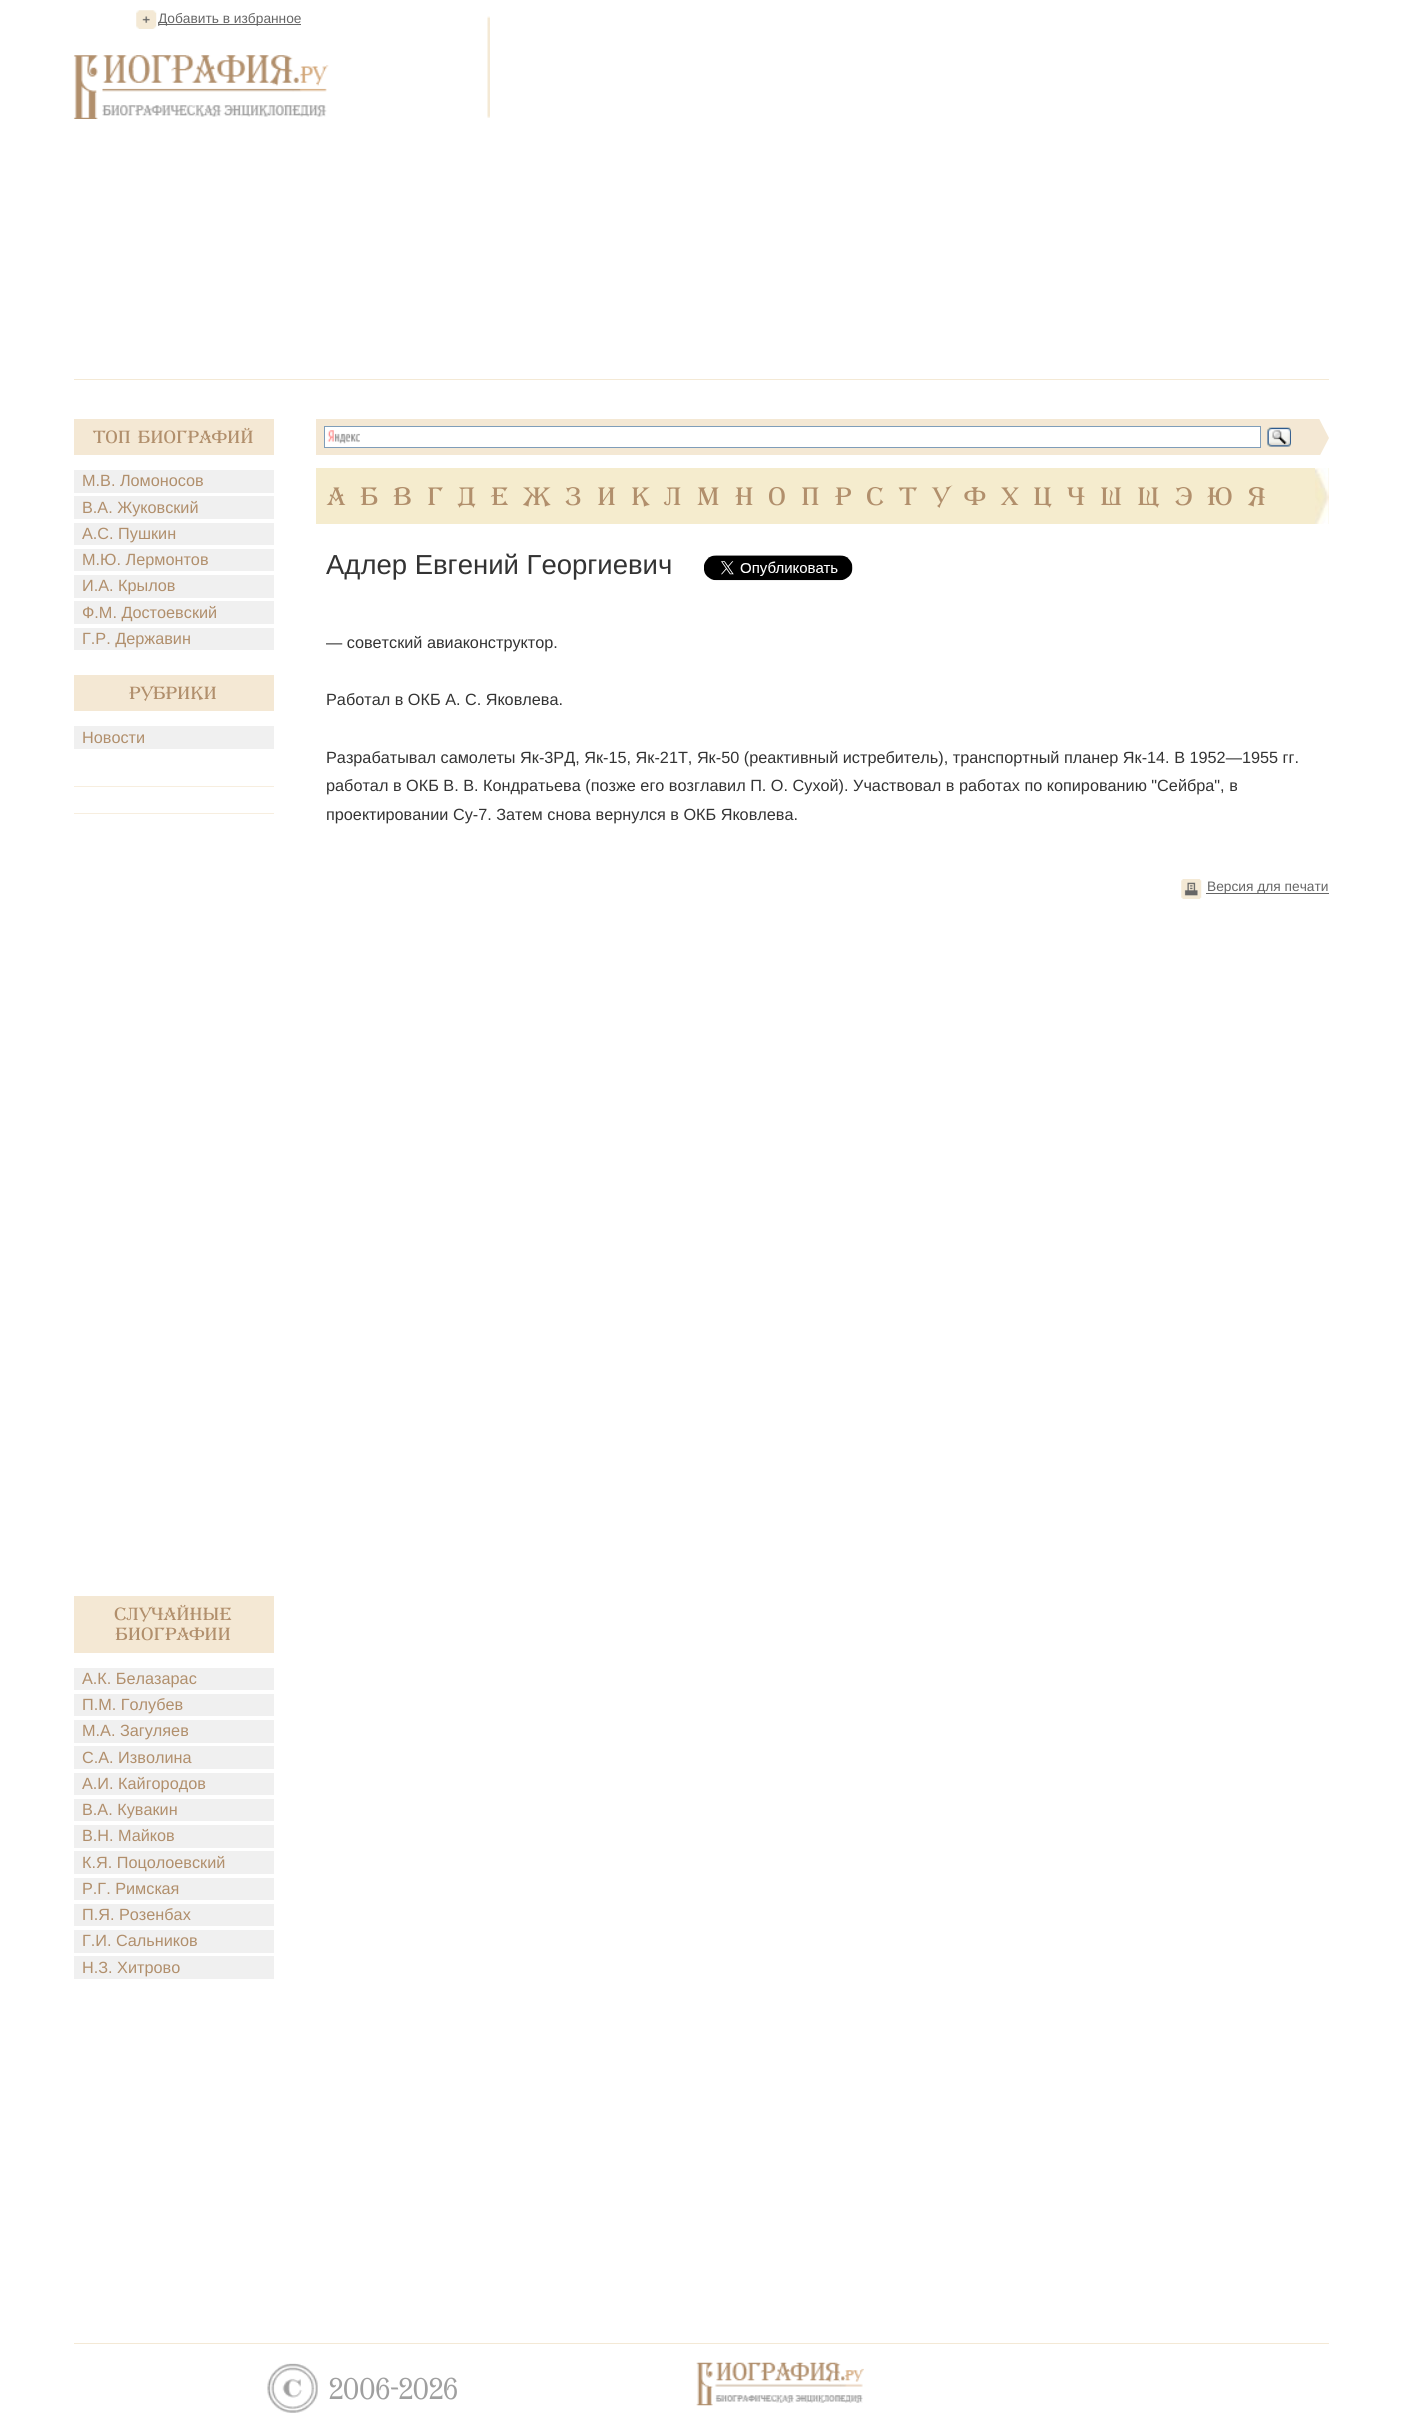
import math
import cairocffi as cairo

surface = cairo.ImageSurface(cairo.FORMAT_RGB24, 1401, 2425)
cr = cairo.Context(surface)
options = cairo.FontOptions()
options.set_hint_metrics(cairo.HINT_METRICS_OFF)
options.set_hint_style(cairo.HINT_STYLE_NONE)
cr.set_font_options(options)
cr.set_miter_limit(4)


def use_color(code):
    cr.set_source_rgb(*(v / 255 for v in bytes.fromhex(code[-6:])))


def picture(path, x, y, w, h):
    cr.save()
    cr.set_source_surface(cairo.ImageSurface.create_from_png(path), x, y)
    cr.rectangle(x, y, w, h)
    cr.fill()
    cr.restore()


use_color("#ffffff")
cr.paint()
use_color("#f4e9d5")
cr.rectangle(74, 379, 1255, 1)
cr.fill()
picture("img1.png", 136, 10, 21, 19)
use_color("#666666")
cr.rectangle(159, 24, 142, 1)
cr.fill()
cr.select_font_face("Liberation Sans")
cr.set_font_size(13.75)
cr.move_to(158, 23)
cr.show_text("Добавить в избранное")
picture("img2.png", 487, 16, 3, 102)
picture("img3.png", 73, 55, 256, 64)
use_color("#f4e8d4")
cr.rectangle(74, 419, 200, 36)
cr.fill()
cr.select_font_face("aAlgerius")
cr.set_font_size(17.5)
use_color("#b18f6c")
cr.move_to(93, 443)
cr.show_text("Топ Биографий")
use_color("#f0f0f0")
cr.rectangle(74, 470, 200, 23)
cr.fill()
cr.select_font_face("Liberation Sans")
cr.set_font_size(16.25)
use_color("#b18f6c")
cr.move_to(82, 486)
cr.show_text("М.В. Ломоносов")
use_color("#f0f0f0")
cr.rectangle(74, 496, 200, 23)
cr.fill()
use_color("#b18f6c")
cr.move_to(82, 513)
cr.show_text("В.А. Жуковский")
use_color("#f0f0f0")
cr.rectangle(74, 523, 200, 22)
cr.fill()
use_color("#b18f6c")
cr.move_to(82, 539)
cr.show_text("А.С. Пушкин")
use_color("#f0f0f0")
cr.rectangle(74, 549, 200, 22)
cr.fill()
use_color("#b18f6c")
cr.move_to(82, 565)
cr.show_text("М.Ю. Лермонтов")
use_color("#f0f0f0")
cr.rectangle(74, 575, 200, 23)
cr.fill()
use_color("#b18f6c")
cr.move_to(82, 591)
cr.show_text("И.А. Крылов")
use_color("#f0f0f0")
cr.rectangle(74, 601, 200, 23)
cr.fill()
use_color("#b18f6c")
cr.move_to(82, 618)
cr.show_text("Ф.М. Достоевский")
use_color("#f0f0f0")
cr.rectangle(74, 628, 200, 22)
cr.fill()
use_color("#b18f6c")
cr.move_to(82, 644)
cr.show_text("Г.Р. Державин")
use_color("#f4e8d4")
cr.rectangle(74, 675, 200, 36)
cr.fill()
cr.select_font_face("aAlgerius")
cr.set_font_size(17.5)
use_color("#b18f6c")
cr.move_to(129, 699)
cr.show_text("Рубрики")
use_color("#f0f0f0")
cr.rectangle(74, 726, 200, 23)
cr.fill()
cr.select_font_face("Liberation Sans")
cr.set_font_size(16.25)
use_color("#b18f6c")
cr.move_to(82, 743)
cr.show_text("Новости")
use_color("#f7eedf")
cr.rectangle(74, 786, 200, 1)
cr.fill()
cr.rectangle(74, 813, 200, 1)
cr.fill()
use_color("#f4e8d4")
cr.rectangle(74, 1596, 200, 57)
cr.fill()
cr.select_font_face("aAlgerius")
cr.set_font_size(17.5)
use_color("#b18f6c")
cr.move_to(114, 1620)
cr.show_text("Случайные")
cr.move_to(115, 1640)
cr.show_text("биографии")
use_color("#f0f0f0")
cr.rectangle(74, 1668, 200, 22)
cr.fill()
cr.select_font_face("Liberation Sans")
cr.set_font_size(16.25)
use_color("#b18f6c")
cr.move_to(82, 1684)
cr.show_text("А.К. Белазарас")
use_color("#f0f0f0")
cr.rectangle(74, 1694, 200, 22)
cr.fill()
use_color("#b18f6c")
cr.move_to(82, 1710)
cr.show_text("П.М. Голубев")
use_color("#f0f0f0")
cr.rectangle(74, 1720, 200, 23)
cr.fill()
use_color("#b18f6c")
cr.move_to(82, 1736)
cr.show_text("М.А. Загуляев")
use_color("#f0f0f0")
cr.rectangle(74, 1746, 200, 23)
cr.fill()
use_color("#b18f6c")
cr.move_to(82, 1763)
cr.show_text("С.А. Изволина")
use_color("#f0f0f0")
cr.rectangle(74, 1773, 200, 22)
cr.fill()
use_color("#b18f6c")
cr.move_to(82, 1789)
cr.show_text("А.И. Кайгородов")
use_color("#f0f0f0")
cr.rectangle(74, 1799, 200, 22)
cr.fill()
use_color("#b18f6c")
cr.move_to(82, 1815)
cr.show_text("В.А. Кувакин")
use_color("#f0f0f0")
cr.rectangle(74, 1825, 200, 23)
cr.fill()
use_color("#b18f6c")
cr.move_to(82, 1841)
cr.show_text("В.Н. Майков")
use_color("#f0f0f0")
cr.rectangle(74, 1851, 200, 23)
cr.fill()
use_color("#b18f6c")
cr.move_to(82, 1868)
cr.show_text("К.Я. Поцолоевский")
use_color("#f0f0f0")
cr.rectangle(74, 1878, 200, 22)
cr.fill()
use_color("#b18f6c")
cr.move_to(82, 1894)
cr.show_text("Р.Г. Римская")
use_color("#f0f0f0")
cr.rectangle(74, 1904, 200, 22)
cr.fill()
use_color("#b18f6c")
cr.move_to(82, 1920)
cr.show_text("П.Я. Розенбах")
use_color("#f0f0f0")
cr.rectangle(74, 1930, 200, 23)
cr.fill()
use_color("#b18f6c")
cr.move_to(82, 1946)
cr.show_text("Г.И. Сальников")
use_color("#f0f0f0")
cr.rectangle(74, 1956, 200, 23)
cr.fill()
use_color("#b18f6c")
cr.move_to(82, 1973)
cr.show_text("Н.З. Хитрово")
use_color("#f4e8d4")
cr.rectangle(316, 419, 975, 36)
cr.fill()
use_color("#ffffff")
cr.rectangle(325, 427, 935, 20)
cr.fill()
picture("img4.png", 327, 430, 33, 14)
cr.rectangle(324.5, 426.5, 936, 21)
use_color("#7f9db9")
cr.set_line_width(1)
cr.stroke()
picture("img5.png", 1267, 427, 24, 20)
cr.save()
cr.rectangle(1291, 419, 38, 36)
cr.clip()
use_color("#f4e8d4")
cr.new_path()
cr.move_to(1291, 511)
cr.line_to(1291, 364)
cr.line_to(1329, 438)
cr.close_path()
cr.fill()
cr.restore()
use_color("#f5ecce")
cr.rectangle(316, 468, 1013, 56)
cr.fill()
picture("img6.png", 1315, 468, 14, 56)
cr.select_font_face("aAlgerius")
cr.set_font_size(25)
use_color("#b18f6c")
cr.move_to(327, 505)
cr.show_text("А")
cr.move_to(360, 505)
cr.show_text("Б")
cr.move_to(393, 505)
cr.show_text("В")
cr.move_to(427, 505)
cr.show_text("Г")
cr.move_to(458, 505)
cr.show_text("Д")
cr.move_to(491, 505)
cr.show_text("Е")
cr.move_to(523, 505)
cr.show_text("Ж")
cr.move_to(565, 505)
cr.show_text("З")
cr.move_to(597, 505)
cr.show_text("И")
cr.move_to(631, 505)
cr.show_text("К")
cr.move_to(664, 505)
cr.show_text("Л")
cr.move_to(697, 505)
cr.show_text("М")
cr.move_to(735, 505)
cr.show_text("Н")
cr.move_to(768, 505)
cr.show_text("О")
cr.move_to(801, 505)
cr.show_text("П")
cr.move_to(835, 505)
cr.show_text("Р")
cr.move_to(866, 505)
cr.show_text("С")
cr.move_to(899, 505)
cr.show_text("Т")
cr.move_to(932, 505)
cr.show_text("У")
cr.move_to(964, 505)
cr.show_text("Ф")
cr.move_to(1001, 505)
cr.show_text("Х")
cr.move_to(1033, 505)
cr.show_text("Ц")
cr.move_to(1067, 505)
cr.show_text("Ч")
cr.move_to(1100, 505)
cr.show_text("Ш")
cr.move_to(1137, 505)
cr.show_text("Щ")
cr.move_to(1175, 505)
cr.show_text("Э")
cr.move_to(1207, 505)
cr.show_text("Ю")
cr.move_to(1248, 505)
cr.show_text("Я")
cr.select_font_face("Liberation Sans")
cr.set_font_size(27.5)
use_color("#333333")
cr.move_to(326, 574)
cr.show_text("Адлер Евгений Георгиевич")
picture("img7.png", 704, 555, 149, 26)
cr.set_font_size(16.25)
cr.move_to(326, 648)
cr.show_text("— советский авиаконструктор.")
cr.move_to(326, 705)
cr.show_text("Работал в ОКБ А. С. Яковлева.")
cr.move_to(326, 763)
cr.show_text("Разрабатывал самолеты Як-3РД, Як-15, Як-21Т, Як-50 (реактивный истребитель), транспортный планер Як-14. В 1952—1955 гг.")
cr.move_to(326, 791)
cr.show_text("работал в ОКБ В. В. Кондратьева (позже его возглавил П. О. Сухой). Участвовал в работах по копированию \"Сейбра\", в")
cr.move_to(326, 820)
cr.show_text("проектировании Су-7. Затем снова вернулся в ОКБ Яковлева.")
picture("img8.png", 1181, 879, 21, 20)
use_color("#666666")
cr.rectangle(1206, 893, 123, 1)
cr.fill()
cr.set_font_size(13.75)
cr.move_to(1207, 891)
cr.show_text("Версия для печати")
use_color("#f4e9d5")
cr.rectangle(74, 2343, 1255, 1)
cr.fill()
picture("img9.png", 267, 2363, 51, 50)
cr.select_font_face("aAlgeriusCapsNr")
cr.set_font_size(30)
use_color("#9f9f9f")
cr.move_to(329, 2399)
cr.show_text("2006-2026")
picture("img10.png", 696, 2362, 168, 44)
surface.write_to_png("result.png")
